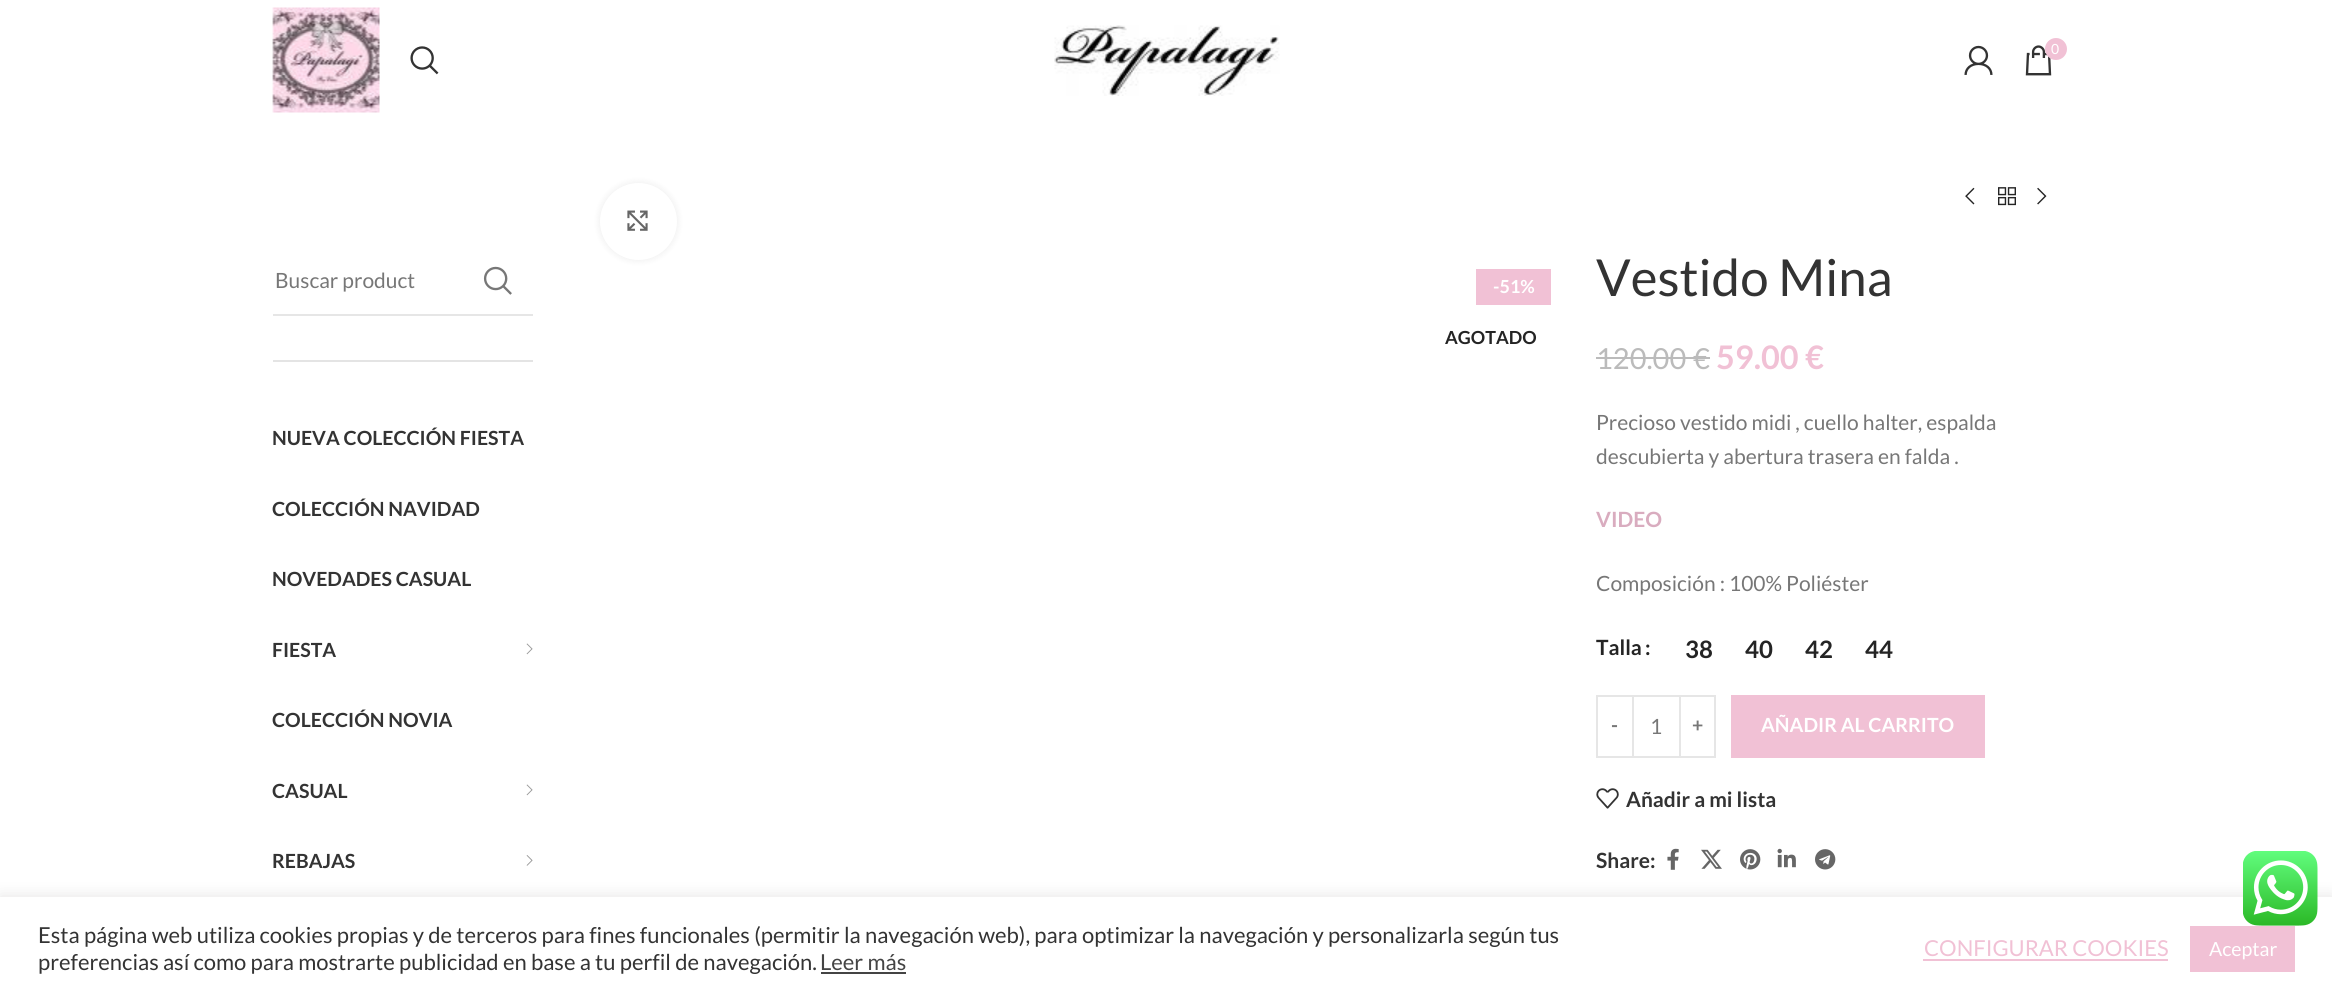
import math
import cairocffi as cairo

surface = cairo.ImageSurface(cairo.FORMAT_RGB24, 2332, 1000)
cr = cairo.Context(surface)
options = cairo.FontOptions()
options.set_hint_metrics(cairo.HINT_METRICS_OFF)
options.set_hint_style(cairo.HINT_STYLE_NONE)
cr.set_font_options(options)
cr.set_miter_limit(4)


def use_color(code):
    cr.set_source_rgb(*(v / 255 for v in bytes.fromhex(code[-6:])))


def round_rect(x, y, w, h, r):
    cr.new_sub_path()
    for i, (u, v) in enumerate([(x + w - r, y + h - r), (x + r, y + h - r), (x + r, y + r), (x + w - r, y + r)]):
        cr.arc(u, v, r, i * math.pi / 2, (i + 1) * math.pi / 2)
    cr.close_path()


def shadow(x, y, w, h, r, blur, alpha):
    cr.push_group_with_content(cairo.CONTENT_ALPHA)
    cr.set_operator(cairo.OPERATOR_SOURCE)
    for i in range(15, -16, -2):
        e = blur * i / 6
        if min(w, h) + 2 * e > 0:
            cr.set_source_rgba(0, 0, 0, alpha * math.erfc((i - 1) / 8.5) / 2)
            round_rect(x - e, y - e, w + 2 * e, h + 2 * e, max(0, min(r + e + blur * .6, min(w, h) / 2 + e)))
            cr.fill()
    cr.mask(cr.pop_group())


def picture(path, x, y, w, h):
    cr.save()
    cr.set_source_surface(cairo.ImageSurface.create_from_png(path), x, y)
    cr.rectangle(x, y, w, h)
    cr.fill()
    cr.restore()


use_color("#ffffff")
cr.paint()
picture("img1.png", 272, 7, 108, 106)
picture("img2.png", 410, 46, 29, 29)
picture("img3.png", 1054, 25, 226, 71)
picture("img4.png", 1964, 45, 29, 30)
picture("img5.png", 2025, 45, 27, 31)
use_color("#f1c1d5")
cr.arc(2056, 49, 11, 0, 2 * math.pi)
cr.fill()
cr.select_font_face("Lato")
cr.set_font_size(14)
use_color("#ffffff")
cr.move_to(2051, 54)
cr.show_text("0")
picture("img6.png", 1965, 187, 10, 18)
picture("img7.png", 1998, 187, 18, 19)
picture("img8.png", 2037, 187, 10, 18)
use_color("#e4e4e4")
cr.rectangle(273, 360, 260, 2)
cr.fill()
use_color("#e6e6e6")
cr.rectangle(273, 314, 260, 2)
cr.fill()
cr.set_font_size(21)
use_color("#777777")
cr.move_to(275, 288)
cr.show_text("Buscar product")
picture("img9.png", 483, 266, 29, 29)
cr.select_font_face("Lato", cairo.FONT_SLANT_NORMAL, cairo.FONT_WEIGHT_BOLD)
cr.set_font_size(19.5)
use_color("#333333")
cr.move_to(272, 445)
cr.show_text("NUEVA COLECCIÓN FIESTA")
cr.move_to(272, 516)
cr.show_text("COLECCIÓN NAVIDAD")
cr.move_to(272, 586)
cr.show_text("NOVEDADES CASUAL")
cr.move_to(272, 657)
cr.show_text("FIESTA")
picture("img10.png", 526, 643, 7, 12)
cr.move_to(272, 727)
cr.show_text("COLECCIÓN NOVIA")
cr.move_to(272, 798)
cr.show_text("CASUAL")
picture("img10.png", 526, 784, 7, 12)
cr.move_to(272, 868)
cr.show_text("REBAJAS")
picture("img11.png", 526, 855, 7, 11)
use_color("#000000")
shadow(600, 183, 77, 77, 38.5, 4, 0.08)
use_color("#ffffff")
cr.arc(638.5, 221.5, 38.5, 0, 2 * math.pi)
cr.fill()
picture("img12.png", 627, 210, 21, 21)
use_color("#f1c1d5")
cr.rectangle(1476, 269, 75, 36)
cr.fill()
cr.set_font_size(18)
use_color("#ffffff")
cr.move_to(1493, 293)
cr.show_text("-51%")
use_color("#242424")
cr.move_to(1445, 344)
cr.show_text("AGOTADO")
cr.select_font_face("Lato")
cr.set_font_size(51)
use_color("#333333")
cr.move_to(1596, 296)
cr.show_text("Vestido Mina")
cr.set_font_size(29)
use_color("#bbbbbb")
cr.move_to(1596, 369)
cr.show_text("120.00")
cr.rectangle(1596, 357, 98, 2)
cr.fill()
cr.move_to(1693, 369)
cr.show_text("€")
cr.rectangle(1694, 357, 16, 2)
cr.fill()
cr.select_font_face("Lato", cairo.FONT_SLANT_NORMAL, cairo.FONT_WEIGHT_BOLD)
cr.set_font_size(32.5)
use_color("#f1c1d5")
cr.move_to(1716, 369)
cr.show_text("59.00 €")
cr.select_font_face("Lato")
cr.set_font_size(21)
use_color("#777777")
cr.move_to(1596, 430)
cr.show_text("Precioso vestido midi , cuello halter, espalda")
cr.move_to(1596, 464)
cr.show_text("descubierta y abertura trasera en falda .")
cr.select_font_face("Lato", cairo.FONT_SLANT_NORMAL, cairo.FONT_WEIGHT_BOLD)
use_color("#d9acbf")
cr.move_to(1596, 527)
cr.show_text("VIDEO")
cr.select_font_face("Lato")
use_color("#777777")
cr.move_to(1596, 591)
cr.show_text("Composición : 100% Poliéster")
cr.select_font_face("Lato", cairo.FONT_SLANT_NORMAL, cairo.FONT_WEIGHT_BOLD)
use_color("#242424")
cr.move_to(1596, 655)
cr.show_text("Talla")
cr.move_to(1645, 655)
cr.show_text(":")
cr.set_font_size(24)
cr.move_to(1685, 658)
cr.show_text("38")
cr.move_to(1745, 658)
cr.show_text("40")
cr.move_to(1805, 658)
cr.show_text("42")
cr.move_to(1865, 658)
cr.show_text("44")
cr.rectangle(1597, 696, 36, 61)
use_color("#e6e6e6")
cr.stroke()
cr.set_font_size(19.5)
use_color("#777777")
cr.move_to(1611, 732)
cr.show_text("-")
use_color("#e6e6e6")
cr.rectangle(1634, 695, 45, 2)
cr.fill()
cr.rectangle(1634, 756, 45, 2)
cr.fill()
cr.select_font_face("Lato")
cr.set_font_size(21)
use_color("#777777")
cr.move_to(1650, 734)
cr.show_text("1")
cr.rectangle(1680, 696, 35, 61)
use_color("#e6e6e6")
cr.stroke()
cr.select_font_face("Lato", cairo.FONT_SLANT_NORMAL, cairo.FONT_WEIGHT_BOLD)
cr.set_font_size(19.5)
use_color("#777777")
cr.move_to(1692, 732)
cr.show_text("+")
use_color("#f1c1d5")
cr.rectangle(1731, 695, 254, 63)
cr.fill()
use_color("#ffffff")
cr.move_to(1761, 732)
cr.show_text("AÑADIR AL CARRITO")
picture("img13.png", 1596, 788, 23, 21)
cr.set_font_size(21)
use_color("#333333")
cr.move_to(1626, 807)
cr.show_text("Añadir a mi lista")
cr.move_to(1596, 868)
cr.show_text("Share:")
picture("img14.png", 1667, 848, 12, 22)
picture("img15.png", 1701, 849, 21, 20)
picture("img16.png", 1740, 849, 21, 21)
picture("img17.png", 1777, 848, 19, 20)
picture("img18.png", 1815, 849, 21, 21)
use_color("#acabab")
shadow(0, 896, 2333, 103, 0, 7.5, 0.3)
use_color("#ffffff")
cr.rectangle(0, 897, 2332, 103)
cr.fill()
picture("img19.png", 2243, 851, 75, 75)
cr.select_font_face("Lato")
cr.set_font_size(22)
use_color("#333333")
cr.move_to(38, 943)
cr.show_text("Esta página web utiliza cookies propias y de terceros para fines funcionales (permitir la navegación web), para optimizar la navegación y personalizarla según tus")
cr.move_to(38, 970)
cr.show_text("preferencias así como para mostrarte publicidad en base a tu perfil de navegación.")
use_color("#444444")
cr.move_to(820, 970)
cr.show_text("Leer más")
cr.rectangle(821, 972, 85, 2)
cr.fill()
use_color("#f1c1d5")
cr.move_to(1924, 956)
cr.show_text("CONFIGURAR COOKIES")
cr.rectangle(1923, 959, 245, 2)
cr.fill()
cr.rectangle(2190, 926, 105, 46)
cr.fill()
cr.set_font_size(19.5)
use_color("#ffffff")
cr.move_to(2209, 956)
cr.show_text("Aceptar")
surface.write_to_png("result.png")
